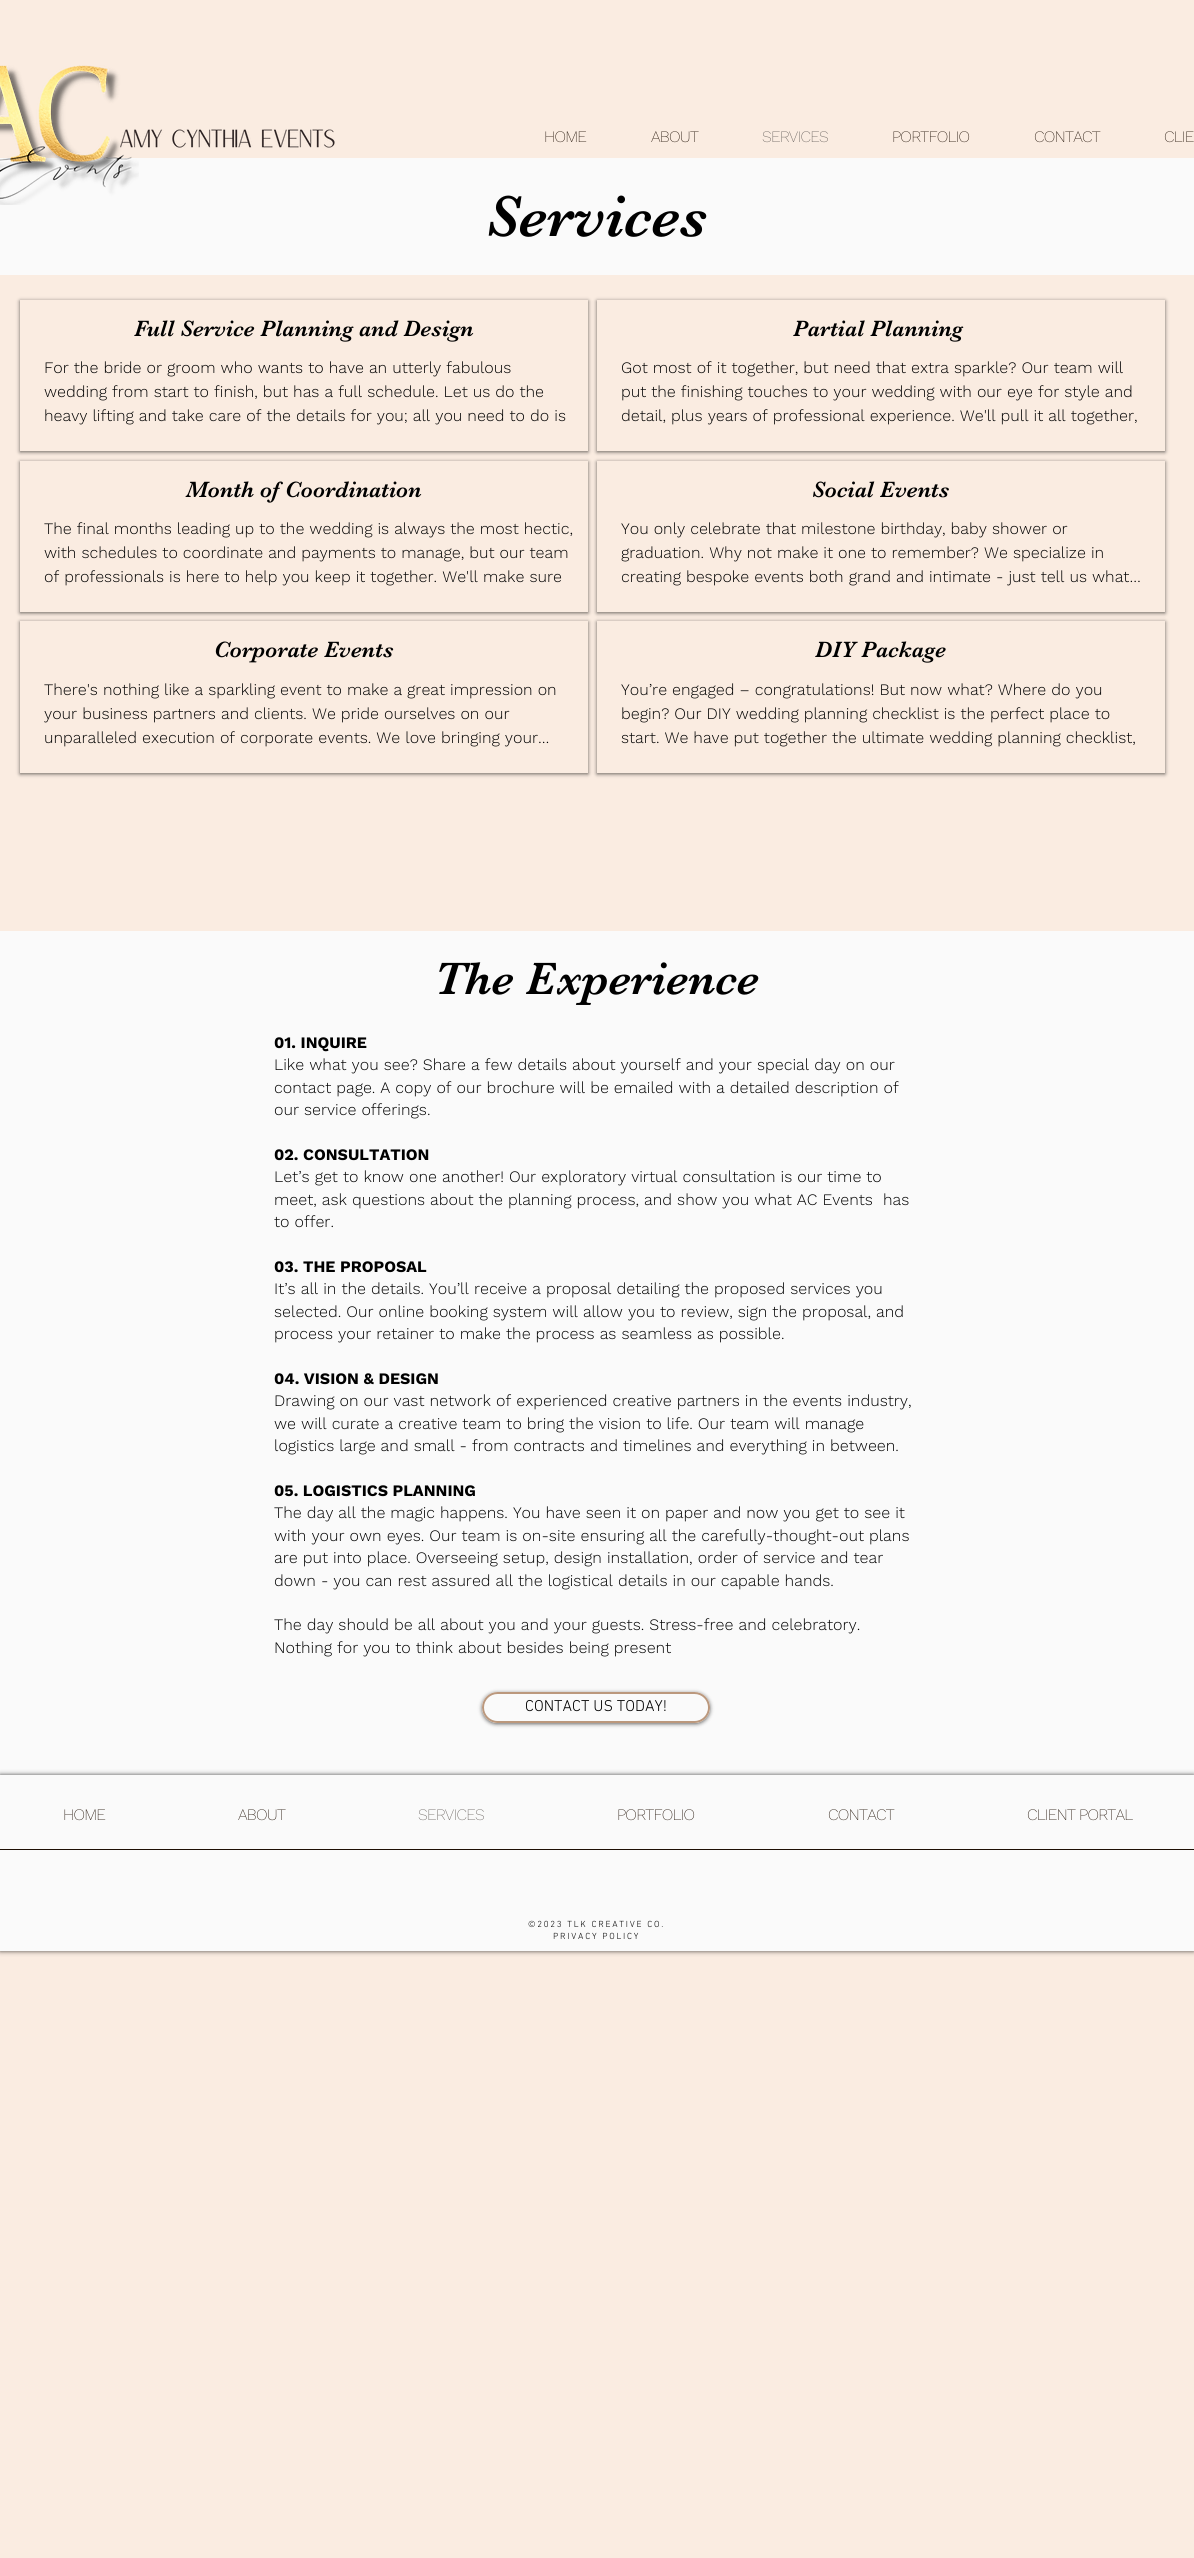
import math
import cairocffi as cairo

surface = cairo.ImageSurface(cairo.FORMAT_RGB24, 1194, 2558)
cr = cairo.Context(surface)
options = cairo.FontOptions()
options.set_hint_metrics(cairo.HINT_METRICS_OFF)
options.set_hint_style(cairo.HINT_STYLE_NONE)
cr.set_font_options(options)
cr.set_miter_limit(4)


def use_color(code):
    cr.set_source_rgb(*(v / 255 for v in bytes.fromhex(code[-6:])))


def spaced_text(x, y, s, letter, word):
    cr.move_to(x, y)
    for ch in s:
        cr.show_text(ch)
        cr.rel_move_to(letter + word * (ch == ' '), 0)


def round_rect(x, y, w, h, r):
    cr.new_sub_path()
    for i, (u, v) in enumerate([(x + w - r, y + h - r), (x + r, y + h - r), (x + r, y + r), (x + w - r, y + r)]):
        cr.arc(u, v, r, i * math.pi / 2, (i + 1) * math.pi / 2)
    cr.close_path()


def shadow(x, y, w, h, r, blur, alpha):
    cr.push_group_with_content(cairo.CONTENT_ALPHA)
    cr.set_operator(cairo.OPERATOR_SOURCE)
    for i in range(15, -16, -2):
        e = blur * i / 6
        if min(w, h) + 2 * e > 0:
            cr.set_source_rgba(0, 0, 0, alpha * math.erfc((i - 1) / 8.5) / 2)
            round_rect(x - e, y - e, w + 2 * e, h + 2 * e, max(0, min(r + e + blur * .6, min(w, h) / 2 + e)))
            cr.fill()
    cr.mask(cr.pop_group())


def picture(path, x, y, w, h):
    cr.save()
    cr.set_source_surface(cairo.ImageSurface.create_from_png(path), x, y)
    cr.rectangle(x, y, w, h)
    cr.fill()
    cr.restore()


use_color("#faece1")
cr.paint()
use_color("#fafafa")
cr.rectangle(0, 158, 1194, 117)
cr.fill()
picture("img1.png", 0, 65, 139, 140)
picture("img2.png", 120, 129, 215, 19)
cr.select_font_face("Work Sans ExtraLight")
cr.set_font_size(16)
use_color("#1d0e03")
spaced_text(544, 142, "HOME", -0.75, 0)
spaced_text(651, 142, "ABOUT", -0.75, 0)
use_color("#645e5a")
spaced_text(762, 142, "SERVICES", -0.75, 0)
use_color("#1d0e03")
spaced_text(892, 142, "PORTFOLIO", -0.75, 0)
spaced_text(1034, 142, "CONTACT", -0.75, 0)
spaced_text(1164, 142, "CLIE", -0.75, 0)
cr.select_font_face("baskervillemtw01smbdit")
cr.set_font_size(60)
use_color("#000000")
cr.move_to(486, 236)
cr.show_text("Services")
cr.save()
cr.set_fill_rule(cairo.FILL_RULE_EVEN_ODD)
cr.new_path()
cr.move_to(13, 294)
cr.line_to(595, 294)
cr.line_to(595, 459)
cr.line_to(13, 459)
cr.close_path()
cr.move_to(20, 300)
cr.line_to(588, 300)
cr.line_to(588, 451)
cr.line_to(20, 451)
cr.close_path()
cr.clip()
use_color("#000000")
shadow(20, 301, 568, 151, 0, 2, 0.6)
cr.restore()
cr.set_font_size(23)
cr.move_to(134, 336)
cr.show_text("Full Service Planning and Design")
cr.select_font_face("Work Sans Light")
cr.set_font_size(16)
cr.move_to(44, 373)
cr.show_text("For the bride or groom who wants to have an utterly fabulous")
cr.move_to(44, 397)
cr.show_text("wedding from start to finish, but has a full schedule. Let us do the")
cr.move_to(44, 421)
cr.show_text("heavy lifting and take care of the details for you; all you need to do is")
cr.save()
cr.set_fill_rule(cairo.FILL_RULE_EVEN_ODD)
cr.new_path()
cr.move_to(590, 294)
cr.line_to(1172, 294)
cr.line_to(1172, 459)
cr.line_to(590, 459)
cr.close_path()
cr.move_to(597, 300)
cr.line_to(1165, 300)
cr.line_to(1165, 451)
cr.line_to(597, 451)
cr.close_path()
cr.clip()
use_color("#000000")
shadow(597, 301, 568, 151, 0, 2, 0.6)
cr.restore()
cr.select_font_face("baskervillemtw01smbdit")
cr.set_font_size(23)
cr.move_to(793, 336)
cr.show_text("Partial Planning")
cr.select_font_face("Work Sans Light")
cr.set_font_size(16)
cr.move_to(621, 373)
cr.show_text("Got most of it together, but need that extra sparkle? Our team will")
cr.move_to(621, 397)
cr.show_text("put the finishing touches to your wedding with our eye for style and")
cr.move_to(621, 421)
cr.show_text("detail, plus years of professional experience. We'll pull it all together,")
cr.save()
cr.set_fill_rule(cairo.FILL_RULE_EVEN_ODD)
cr.new_path()
cr.move_to(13, 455)
cr.line_to(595, 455)
cr.line_to(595, 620)
cr.line_to(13, 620)
cr.close_path()
cr.move_to(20, 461)
cr.line_to(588, 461)
cr.line_to(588, 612)
cr.line_to(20, 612)
cr.close_path()
cr.clip()
use_color("#000000")
shadow(20, 462, 568, 151, 0, 2, 0.6)
cr.restore()
cr.select_font_face("baskervillemtw01smbdit")
cr.set_font_size(23)
cr.move_to(186, 497)
cr.show_text("Month of Coordination")
cr.select_font_face("Work Sans Light")
cr.set_font_size(16)
cr.move_to(44, 534)
cr.show_text("The final months leading up to the wedding is always the most hectic,")
cr.move_to(44, 558)
cr.show_text("with schedules to coordinate and payments to manage, but our team")
cr.move_to(44, 582)
cr.show_text("of professionals is here to help you keep it together. We'll make sure")
cr.save()
cr.set_fill_rule(cairo.FILL_RULE_EVEN_ODD)
cr.new_path()
cr.move_to(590, 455)
cr.line_to(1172, 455)
cr.line_to(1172, 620)
cr.line_to(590, 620)
cr.close_path()
cr.move_to(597, 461)
cr.line_to(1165, 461)
cr.line_to(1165, 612)
cr.line_to(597, 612)
cr.close_path()
cr.clip()
use_color("#000000")
shadow(597, 462, 568, 151, 0, 2, 0.6)
cr.restore()
cr.select_font_face("baskervillemtw01smbdit")
cr.set_font_size(23)
cr.move_to(812, 497)
cr.show_text("Social Events")
cr.select_font_face("Work Sans Light")
cr.set_font_size(16)
cr.move_to(621, 534)
cr.show_text("You only celebrate that milestone birthday, baby shower or")
cr.move_to(621, 558)
cr.show_text("graduation. Why not make it one to remember? We specialize in")
cr.move_to(621, 582)
cr.show_text("creating bespoke events both grand and intimate - just tell us what…")
cr.save()
cr.set_fill_rule(cairo.FILL_RULE_EVEN_ODD)
cr.new_path()
cr.move_to(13, 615)
cr.line_to(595, 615)
cr.line_to(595, 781)
cr.line_to(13, 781)
cr.close_path()
cr.move_to(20, 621)
cr.line_to(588, 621)
cr.line_to(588, 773)
cr.line_to(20, 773)
cr.close_path()
cr.clip()
use_color("#000000")
shadow(20, 622, 568, 152, 0, 2, 0.6)
cr.restore()
cr.select_font_face("baskervillemtw01smbdit")
cr.set_font_size(23)
cr.move_to(214, 657)
cr.show_text("Corporate Events")
cr.select_font_face("Work Sans Light")
cr.set_font_size(16)
cr.move_to(44, 695)
cr.show_text("There's nothing like a sparkling event to make a great impression on")
cr.move_to(44, 719)
cr.show_text("your business partners and clients. We pride ourselves on our")
cr.move_to(44, 743)
cr.show_text("unparalleled execution of corporate events. We love bringing your…")
cr.save()
cr.set_fill_rule(cairo.FILL_RULE_EVEN_ODD)
cr.new_path()
cr.move_to(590, 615)
cr.line_to(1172, 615)
cr.line_to(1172, 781)
cr.line_to(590, 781)
cr.close_path()
cr.move_to(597, 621)
cr.line_to(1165, 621)
cr.line_to(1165, 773)
cr.line_to(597, 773)
cr.close_path()
cr.clip()
use_color("#000000")
shadow(597, 622, 568, 152, 0, 2, 0.6)
cr.restore()
cr.select_font_face("baskervillemtw01smbdit")
cr.set_font_size(23)
cr.move_to(815, 657)
cr.show_text("DIY Package")
cr.select_font_face("Work Sans Light")
cr.set_font_size(16)
cr.move_to(621, 695)
cr.show_text("You’re engaged – congratulations! But now what? Where do you")
cr.move_to(621, 719)
cr.show_text("begin? Our DIY wedding planning checklist is the perfect place to")
cr.move_to(621, 743)
cr.show_text("start. We have put together the ultimate wedding planning checklist,")
use_color("#fafafa")
cr.rectangle(0, 931, 1194, 844)
cr.fill()
cr.select_font_face("baskervillemtw01smbdit")
cr.set_font_size(47)
use_color("#000000")
cr.move_to(434, 994)
cr.show_text("The Experience")
cr.select_font_face("Work Sans", cairo.FONT_SLANT_NORMAL, cairo.FONT_WEIGHT_BOLD)
cr.set_font_size(16)
cr.move_to(274, 1048)
cr.show_text("01. INQUIRE")
cr.select_font_face("Work Sans Light")
cr.move_to(274, 1070)
cr.show_text("Like what you see? Share a few details about yourself and your special day on our")
cr.move_to(274, 1093)
cr.show_text("contact page. A copy of our brochure will be emailed with a detailed description of")
cr.move_to(274, 1115)
cr.show_text("our service offerings.")
cr.select_font_face("Work Sans", cairo.FONT_SLANT_NORMAL, cairo.FONT_WEIGHT_BOLD)
cr.move_to(274, 1160)
cr.show_text("02. CONSULTATION")
cr.select_font_face("Work Sans Light")
cr.move_to(274, 1182)
cr.show_text("Let’s get to know one another! Our exploratory virtual consultation is our time to")
cr.move_to(274, 1205)
cr.show_text("meet, ask questions about the planning process, and show you what AC Events  has")
cr.move_to(274, 1227)
cr.show_text("to offer.")
cr.select_font_face("Work Sans", cairo.FONT_SLANT_NORMAL, cairo.FONT_WEIGHT_BOLD)
cr.move_to(274, 1272)
cr.show_text("03. THE PROPOSAL")
cr.select_font_face("Work Sans Light")
cr.move_to(274, 1294)
cr.show_text("It’s all in the details. You’ll receive a proposal detailing the proposed services you")
cr.move_to(274, 1317)
cr.show_text("selected. Our online booking system will allow you to review, sign the proposal, and")
cr.move_to(274, 1339)
cr.show_text("process your retainer to make the process as seamless as possible.")
cr.select_font_face("Work Sans", cairo.FONT_SLANT_NORMAL, cairo.FONT_WEIGHT_BOLD)
cr.move_to(274, 1384)
cr.show_text("04. VISION & DESIGN")
cr.select_font_face("Work Sans Light")
cr.move_to(274, 1406)
cr.show_text("Drawing on our vast network of experienced creative partners in the events industry,")
cr.move_to(274, 1429)
cr.show_text("we will curate a creative team to bring the vision to life. Our team will manage")
cr.move_to(274, 1451)
cr.show_text("logistics large and small - from contracts and timelines and everything in between.")
cr.select_font_face("Work Sans", cairo.FONT_SLANT_NORMAL, cairo.FONT_WEIGHT_BOLD)
cr.move_to(274, 1496)
cr.show_text("05. LOGISTICS PLANNING")
cr.select_font_face("Work Sans Light")
cr.move_to(274, 1518)
cr.show_text("The day all the magic happens. You have seen it on paper and now you get to see it")
cr.move_to(274, 1541)
cr.show_text("with your own eyes. Our team is on-site ensuring all the carefully-thought-out plans")
cr.move_to(274, 1563)
cr.show_text("are put into place. Overseeing setup, design installation, order of service and tear")
cr.move_to(274, 1586)
cr.show_text("down - you can rest assured all the logistical details in our capable hands.")
cr.move_to(274, 1630)
cr.show_text("The day should be all about you and your guests. Stress-free and celebratory.")
cr.move_to(274, 1653)
cr.show_text("Nothing for you to think about besides being present")
cr.save()
cr.set_fill_rule(cairo.FILL_RULE_EVEN_ODD)
cr.new_path()
cr.move_to(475, 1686)
cr.line_to(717, 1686)
cr.line_to(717, 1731)
cr.line_to(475, 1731)
cr.close_path()
cr.move_to(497.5, 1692)
cr.line_to(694.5, 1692)
cr.curve_to(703, 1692, 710, 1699, 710, 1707.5)
cr.curve_to(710, 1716, 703, 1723, 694.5, 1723)
cr.line_to(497.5, 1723)
cr.curve_to(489, 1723, 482, 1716, 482, 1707.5)
cr.curve_to(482, 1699, 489, 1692, 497.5, 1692)
cr.close_path()
cr.clip()
use_color("#000000")
shadow(482, 1693, 228, 31, 15.5, 2, 0.6)
cr.restore()
round_rect(483, 1693, 226, 29, 14.5)
use_color("#bb987d")
cr.stroke()
cr.select_font_face("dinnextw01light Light")
use_color("#000000")
cr.move_to(525, 1711)
cr.show_text("CONTACT US TODAY!")
use_color("#000000")
shadow(0, 1775, 1194, 176, 0, 2.5, 0.7)
use_color("#fafafa")
cr.rectangle(0, 1775, 1194, 176)
cr.fill()
cr.select_font_face("Work Sans ExtraLight")
use_color("#1d0e03")
spaced_text(63, 1820, "HOME", -0.75, 0)
spaced_text(238, 1820, "ABOUT", -0.75, 0)
use_color("#645e5a")
spaced_text(418, 1820, "SERVICES", -0.75, 0)
use_color("#1d0e03")
spaced_text(617, 1820, "PORTFOLIO", -0.75, 0)
spaced_text(828, 1820, "CONTACT", -0.75, 0)
spaced_text(1027, 1820, "CLIENT PORTAL", -0.75, 0)
cr.rectangle(0, 1849, 1194, 1)
cr.fill()
cr.select_font_face("dinnextw01light Light")
cr.set_font_size(9)
use_color("#000000")
spaced_text(528, 1927, "©2023 TLK CREATIVE CO.", 1.75, 0)
spaced_text(553, 1939, "PRIVACY POLICY", 1.75, 0)
surface.write_to_png("result.png")
